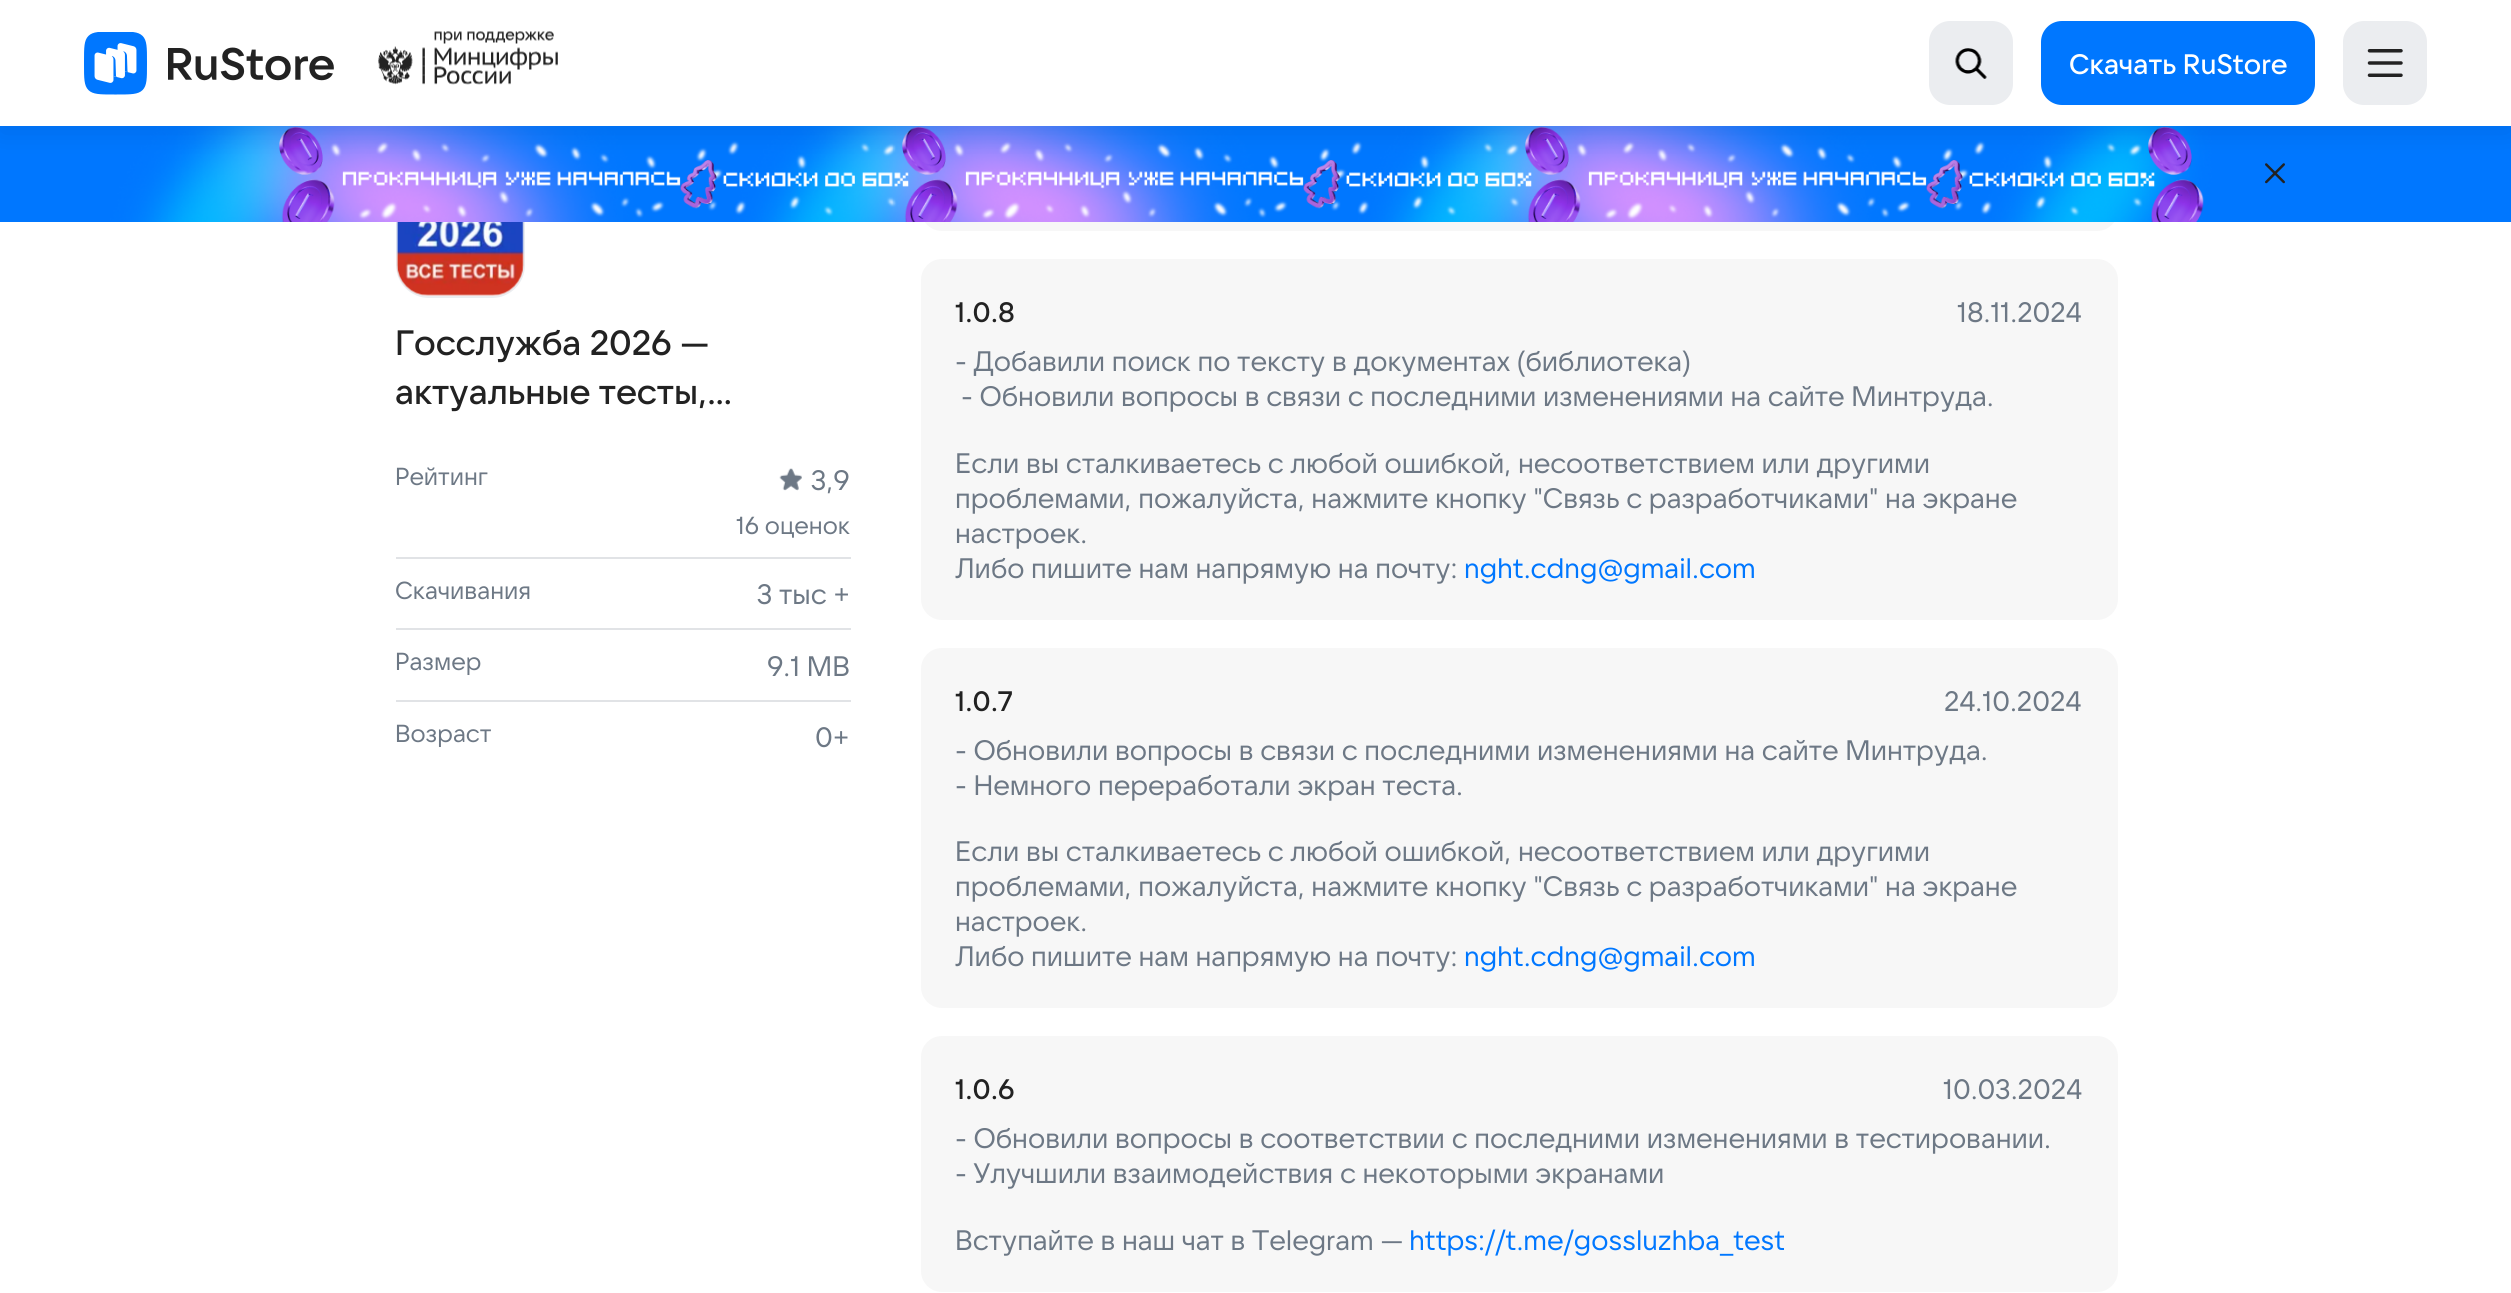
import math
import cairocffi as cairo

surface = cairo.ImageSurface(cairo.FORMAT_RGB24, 2511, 1293)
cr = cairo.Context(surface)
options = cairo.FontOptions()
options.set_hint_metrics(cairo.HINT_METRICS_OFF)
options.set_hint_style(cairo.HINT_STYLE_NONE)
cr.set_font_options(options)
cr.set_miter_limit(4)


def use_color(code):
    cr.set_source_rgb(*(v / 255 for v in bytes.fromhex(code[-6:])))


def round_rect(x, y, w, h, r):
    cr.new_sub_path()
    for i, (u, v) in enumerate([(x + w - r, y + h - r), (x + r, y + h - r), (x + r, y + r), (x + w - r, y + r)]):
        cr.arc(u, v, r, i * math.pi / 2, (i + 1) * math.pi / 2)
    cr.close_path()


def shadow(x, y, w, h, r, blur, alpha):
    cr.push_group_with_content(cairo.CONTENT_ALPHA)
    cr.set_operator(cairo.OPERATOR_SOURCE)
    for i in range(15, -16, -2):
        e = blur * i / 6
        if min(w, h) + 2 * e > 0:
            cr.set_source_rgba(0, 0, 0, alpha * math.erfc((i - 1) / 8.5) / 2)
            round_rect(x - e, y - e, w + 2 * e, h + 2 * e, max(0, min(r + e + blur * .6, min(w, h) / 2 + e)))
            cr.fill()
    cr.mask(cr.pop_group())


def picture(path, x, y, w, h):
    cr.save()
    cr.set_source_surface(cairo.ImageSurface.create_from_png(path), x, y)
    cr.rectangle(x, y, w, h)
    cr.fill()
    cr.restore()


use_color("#ffffff")
cr.paint()
round_rect(397, 169, 127, 128, 32)
use_color("#ebedf0")
cr.stroke()
use_color("#f7f7f7")
round_rect(921, -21, 1197, 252, 21)
cr.fill()
picture("img5.png", 0, 126, 2511, 96)
picture("img6.png", 2265, 163, 20, 21)
use_color("#000000")
shadow(0, 7, 2511, 126, 0, 14, 0.08)
use_color("#ffffff")
cr.rectangle(0, 0, 2511, 126)
cr.fill()
picture("img1.png", 84, 32, 250, 63)
picture("img2.png", 378, 31, 180, 54)
use_color("#ebedf0")
round_rect(1929, 21, 84, 84, 21)
cr.fill()
picture("img3.png", 1955, 48, 32, 31)
use_color("#0077ff")
round_rect(2041, 21, 274, 84, 21)
cr.fill()
cr.select_font_face("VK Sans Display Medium")
cr.set_font_size(28)
use_color("#ffffff")
cr.move_to(2069, 74)
cr.show_text("Скачать RuStore")
use_color("#ebedf0")
round_rect(2343, 21, 84, 84, 21)
cr.fill()
picture("img4.png", 2367, 49, 36, 28)
picture("img7.png", 396, 222, 128, 74)
cr.set_font_size(35)
use_color("#222222")
cr.move_to(395, 355)
cr.show_text("Госслужба 2026 —")
cr.move_to(395, 404)
cr.show_text("актуальные тесты,…")
use_color("#e1e3e6")
cr.rectangle(396, 557, 455, 2)
cr.fill()
cr.select_font_face("VK Sans Display")
cr.set_font_size(24.5)
use_color("#6d7885")
cr.move_to(395, 485)
cr.show_text("Рейтинг")
picture("img8.png", 779, 468, 23, 23)
cr.set_font_size(28)
cr.move_to(811, 490)
cr.show_text("3,9")
cr.set_font_size(24.5)
cr.move_to(736, 534)
cr.show_text("16 оценок")
use_color("#e1e3e6")
cr.rectangle(396, 628, 455, 2)
cr.fill()
cr.save()
cr.rectangle(396, 459, 455, 299)
cr.clip()
use_color("#6d7885")
cr.move_to(395, 599)
cr.show_text("Скачивания")
cr.restore()
cr.set_font_size(28)
use_color("#6d7885")
cr.move_to(757, 604)
cr.show_text("3 тыс +")
use_color("#e1e3e6")
cr.rectangle(396, 700, 455, 2)
cr.fill()
cr.set_font_size(24.5)
use_color("#6d7885")
cr.move_to(395, 670)
cr.show_text("Размер")
cr.set_font_size(28)
cr.move_to(767, 676)
cr.show_text("9.1 MB")
cr.set_font_size(24.5)
cr.move_to(395, 742)
cr.show_text("Возраст")
cr.set_font_size(28)
cr.move_to(815, 747)
cr.show_text("0+")
use_color("#f7f7f7")
round_rect(921, 259, 1197, 361, 21)
cr.fill()
cr.select_font_face("VK Sans Display Medium")
use_color("#222222")
cr.move_to(955, 322)
cr.show_text("1.0.8")
cr.select_font_face("VK Sans Display")
use_color("#6d7885")
cr.move_to(1957, 322)
cr.show_text("18.11.2024")
cr.move_to(955, 371)
cr.show_text("- Добавили поиск по тексту в документах (библиотека)")
cr.move_to(961, 406)
cr.show_text("- Обновили вопросы в связи с последними изменениями на сайте Минтруда.")
cr.move_to(955, 473)
cr.show_text("Если вы сталкиваетесь с любой ошибкой, несоответствием или другими")
cr.move_to(955, 508)
cr.show_text("проблемами, пожалуйста, нажмите кнопку \"Связь с разработчиками\" на экране")
cr.move_to(955, 543)
cr.show_text("настроек.")
cr.move_to(955, 578)
cr.show_text("Либо пишите нам напрямую на почту:")
use_color("#0077ff")
cr.move_to(1464, 578)
cr.show_text("nght.cdng@gmail.com")
use_color("#f7f7f7")
round_rect(921, 648, 1197, 360, 21)
cr.fill()
cr.select_font_face("VK Sans Display Medium")
use_color("#222222")
cr.move_to(955, 711)
cr.show_text("1.0.7")
cr.select_font_face("VK Sans Display")
use_color("#6d7885")
cr.move_to(1944, 711)
cr.show_text("24.10.2024")
cr.move_to(955, 760)
cr.show_text("- Обновили вопросы в связи с последними изменениями на сайте Минтруда.")
cr.move_to(955, 795)
cr.show_text("- Немного переработали экран теста.")
cr.move_to(955, 861)
cr.show_text("Если вы сталкиваетесь с любой ошибкой, несоответствием или другими")
cr.move_to(955, 896)
cr.show_text("проблемами, пожалуйста, нажмите кнопку \"Связь с разработчиками\" на экране")
cr.move_to(955, 931)
cr.show_text("настроек.")
cr.move_to(955, 966)
cr.show_text("Либо пишите нам напрямую на почту:")
use_color("#0077ff")
cr.move_to(1464, 966)
cr.show_text("nght.cdng@gmail.com")
use_color("#f7f7f7")
round_rect(921, 1036, 1197, 256, 21)
cr.fill()
cr.select_font_face("VK Sans Display Medium")
use_color("#222222")
cr.move_to(955, 1099)
cr.show_text("1.0.6")
cr.select_font_face("VK Sans Display")
use_color("#6d7885")
cr.move_to(1943, 1099)
cr.show_text("10.03.2024")
cr.move_to(955, 1148)
cr.show_text("- Обновили вопросы в соответствии с последними изменениями в тестировании.")
cr.move_to(955, 1183)
cr.show_text("- Улучшили взаимодействия с некоторыми экранами")
cr.move_to(955, 1250)
cr.show_text("Вступайте в наш чат в Telegram —")
use_color("#0077ff")
cr.move_to(1409, 1250)
cr.show_text("https://t.me/gossluzhba_test")
surface.write_to_png("result.png")
